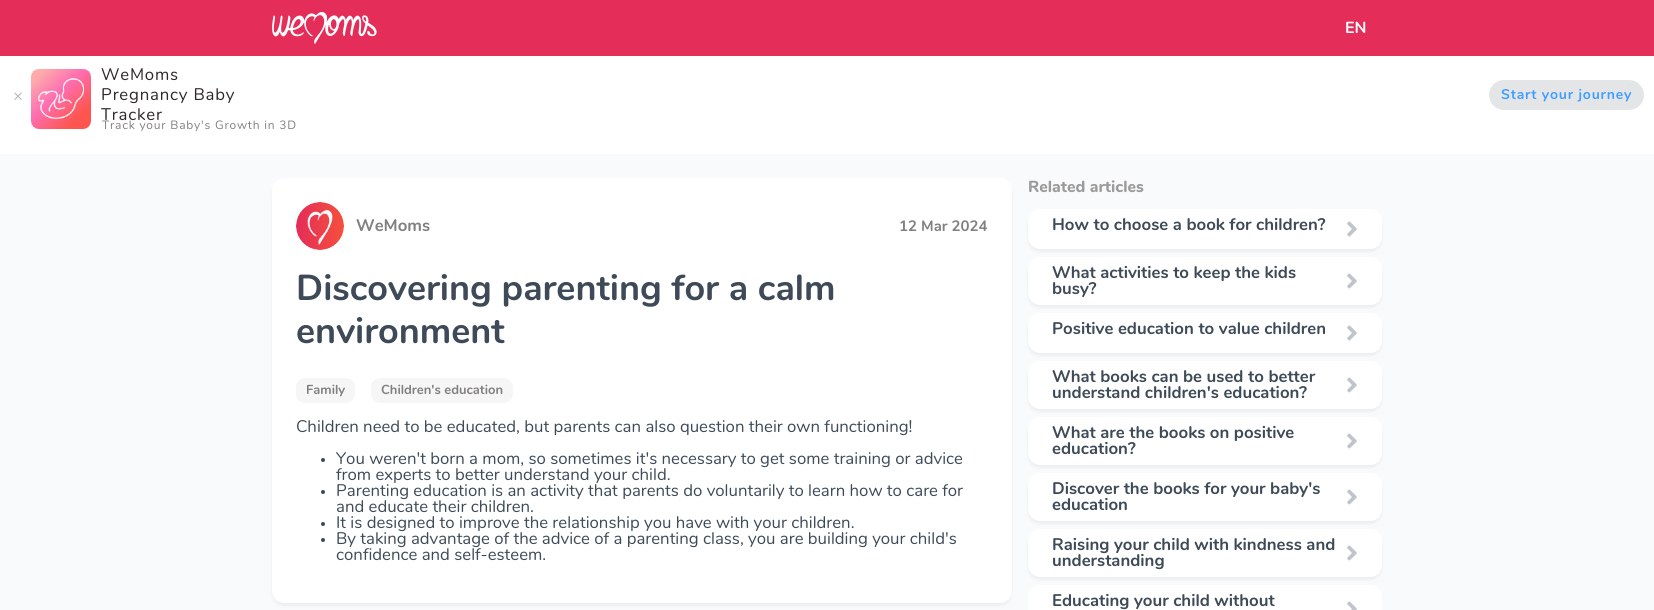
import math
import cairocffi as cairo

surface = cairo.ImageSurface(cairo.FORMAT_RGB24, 1654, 610)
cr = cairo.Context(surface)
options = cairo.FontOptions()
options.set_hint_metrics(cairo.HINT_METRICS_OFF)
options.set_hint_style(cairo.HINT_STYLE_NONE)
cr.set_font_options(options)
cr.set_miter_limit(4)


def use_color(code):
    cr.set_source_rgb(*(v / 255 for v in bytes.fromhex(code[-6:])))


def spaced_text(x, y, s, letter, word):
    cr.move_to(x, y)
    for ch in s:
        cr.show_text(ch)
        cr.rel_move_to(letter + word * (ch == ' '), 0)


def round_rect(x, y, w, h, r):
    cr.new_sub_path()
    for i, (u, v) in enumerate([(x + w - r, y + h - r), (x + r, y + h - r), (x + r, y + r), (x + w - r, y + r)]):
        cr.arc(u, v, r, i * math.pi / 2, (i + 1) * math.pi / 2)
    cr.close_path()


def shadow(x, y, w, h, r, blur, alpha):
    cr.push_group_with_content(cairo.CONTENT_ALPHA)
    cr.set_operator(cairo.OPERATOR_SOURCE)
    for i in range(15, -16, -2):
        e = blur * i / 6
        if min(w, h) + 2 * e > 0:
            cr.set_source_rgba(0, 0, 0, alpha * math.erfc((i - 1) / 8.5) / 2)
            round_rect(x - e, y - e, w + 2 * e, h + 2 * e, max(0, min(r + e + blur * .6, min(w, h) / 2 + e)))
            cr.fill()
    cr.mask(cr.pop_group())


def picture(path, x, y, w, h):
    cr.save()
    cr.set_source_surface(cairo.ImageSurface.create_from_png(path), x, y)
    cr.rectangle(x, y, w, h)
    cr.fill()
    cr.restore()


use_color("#ffffff")
cr.paint()
use_color("#f9fafb")
cr.rectangle(0, 154, 1654, 456)
cr.fill()
use_color("#e42d59")
cr.rectangle(0, 0, 1654, 56)
cr.fill()
picture("img1.png", 272, 12, 105, 32)
cr.select_font_face("Nunito", cairo.FONT_SLANT_NORMAL, cairo.FONT_WEIGHT_BOLD)
cr.set_font_size(16)
use_color("#ffffff")
cr.move_to(1345, 33)
cr.show_text("EN")
use_color("#000000")
shadow(272, 181, 740, 425, 12, 1.5, 0.05)
use_color("#ffffff")
round_rect(272, 178, 740, 425, 12)
cr.fill()
picture("img2.png", 296, 202, 48, 48)
cr.set_font_size(16.8)
use_color("#827f7f")
cr.move_to(356, 231)
cr.show_text("WeMoms")
cr.set_font_size(15)
cr.move_to(899, 231)
cr.show_text("12 Mar 2024")
cr.set_font_size(36)
use_color("#3e4a57")
cr.move_to(296, 300)
cr.show_text("Discovering parenting for a calm")
cr.move_to(296, 343)
cr.show_text("environment")
use_color("#f6f6f6")
round_rect(296, 378, 59, 25, 9)
cr.fill()
cr.set_font_size(13)
use_color("#827f7f")
cr.move_to(306, 394)
cr.show_text("Family")
use_color("#f6f6f6")
round_rect(371, 378, 142, 25, 9)
cr.fill()
use_color("#827f7f")
cr.move_to(381, 394)
cr.show_text("Children's education")
cr.select_font_face("Nunito")
cr.set_font_size(16.8)
use_color("#3e4a57")
cr.move_to(296, 432)
cr.show_text("Children need to be educated, but parents can also question their own functioning!")
cr.new_path()
cr.arc(323, 460, 2, 0, 2 * math.pi)
cr.fill()
cr.move_to(336, 464)
cr.show_text("You weren't born a mom, so sometimes it's necessary to get some training or advice")
cr.move_to(336, 480)
cr.show_text("from experts to better understand your child.")
cr.new_path()
cr.arc(323, 492, 2, 0, 2 * math.pi)
cr.fill()
cr.move_to(336, 496)
cr.show_text("Parenting education is an activity that parents do voluntarily to learn how to care for")
cr.move_to(336, 512)
cr.show_text("and educate their children.")
cr.new_path()
cr.arc(323, 524, 2, 0, 2 * math.pi)
cr.fill()
cr.move_to(336, 528)
cr.show_text("It is designed to improve the relationship you have with your children.")
cr.new_path()
cr.arc(323, 540, 2, 0, 2 * math.pi)
cr.fill()
cr.move_to(336, 544)
cr.show_text("By taking advantage of the advice of a parenting class, you are building your child's")
cr.move_to(336, 560)
cr.show_text("confidence and self-esteem.")
cr.select_font_face("Nunito ExtraBold")
cr.set_font_size(16)
use_color("#9b9b9b")
cr.move_to(1028, 192)
cr.show_text("Related articles")
use_color("#000000")
shadow(1028, 212, 354, 40, 12, 1.5, 0.05)
use_color("#ffffff")
round_rect(1028, 209, 354, 40, 12)
cr.fill()
cr.select_font_face("Nunito", cairo.FONT_SLANT_NORMAL, cairo.FONT_WEIGHT_BOLD)
cr.set_font_size(16.8)
use_color("#3e4a57")
cr.move_to(1052, 230)
cr.show_text("How to choose a book for children?")
picture("img3.png", 1347, 221, 10, 16)
use_color("#000000")
shadow(1028, 260, 354, 48, 12, 1.5, 0.05)
use_color("#ffffff")
round_rect(1028, 257, 354, 48, 12)
cr.fill()
use_color("#3e4a57")
cr.move_to(1052, 278)
cr.show_text("What activities to keep the kids")
cr.move_to(1052, 294)
cr.show_text("busy?")
picture("img3.png", 1347, 273, 10, 16)
use_color("#000000")
shadow(1028, 316, 354, 40, 12, 1.5, 0.05)
use_color("#ffffff")
round_rect(1028, 313, 354, 40, 12)
cr.fill()
use_color("#3e4a57")
cr.move_to(1052, 334)
cr.show_text("Positive education to value children")
picture("img3.png", 1347, 325, 10, 16)
use_color("#000000")
shadow(1028, 364, 354, 48, 12, 1.5, 0.05)
use_color("#ffffff")
round_rect(1028, 361, 354, 48, 12)
cr.fill()
use_color("#3e4a57")
cr.move_to(1052, 382)
cr.show_text("What books can be used to better")
cr.move_to(1052, 398)
cr.show_text("understand children's education?")
picture("img3.png", 1347, 377, 10, 16)
use_color("#000000")
shadow(1028, 420, 354, 48, 12, 1.5, 0.05)
use_color("#ffffff")
round_rect(1028, 417, 354, 48, 12)
cr.fill()
use_color("#3e4a57")
cr.move_to(1052, 438)
cr.show_text("What are the books on positive")
cr.move_to(1052, 454)
cr.show_text("education?")
picture("img3.png", 1347, 433, 10, 16)
use_color("#000000")
shadow(1028, 476, 354, 48, 12, 1.5, 0.05)
use_color("#ffffff")
round_rect(1028, 473, 354, 48, 12)
cr.fill()
use_color("#3e4a57")
cr.move_to(1052, 494)
cr.show_text("Discover the books for your baby's")
cr.move_to(1052, 510)
cr.show_text("education")
picture("img3.png", 1347, 489, 10, 16)
use_color("#000000")
shadow(1028, 532, 354, 48, 12, 1.5, 0.05)
use_color("#ffffff")
round_rect(1028, 529, 354, 48, 12)
cr.fill()
use_color("#3e4a57")
cr.move_to(1052, 550)
cr.show_text("Raising your child with kindness and")
cr.move_to(1052, 566)
cr.show_text("understanding")
picture("img3.png", 1347, 545, 10, 16)
use_color("#ffffff")
round_rect(1028, 585, 354, 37, 12)
cr.fill()
use_color("#3e4a57")
cr.move_to(1052, 606)
cr.show_text("Educating your child without")
picture("img4.png", 1347, 601, 10, 9)
cr.select_font_face("Nunito")
use_color("#b3b3b3")
spaced_text(13, 101, "×", 0.8, 0)
picture("img5.png", 31, 69, 60, 60)
use_color("#2e2929")
spaced_text(101, 80, "WeMoms", 0.8, 0)
spaced_text(101, 100, "Pregnancy Baby", 0.8, 0)
spaced_text(101, 120, "Tracker", 0.8, 0)
use_color("#e4e5e7")
round_rect(1489, 80, 155, 30, 15)
cr.fill()
cr.select_font_face("Nunito", cairo.FONT_SLANT_NORMAL, cairo.FONT_WEIGHT_BOLD)
cr.set_font_size(14)
use_color("#409eff")
spaced_text(1501, 99, "Start your journey", 0.8, 0)
cr.select_font_face("Nunito")
cr.set_font_size(12)
use_color("#827f7f")
spaced_text(102, 129, "Track your Baby's Growth in 3D", 0.8, 0)
surface.write_to_png("result.png")
